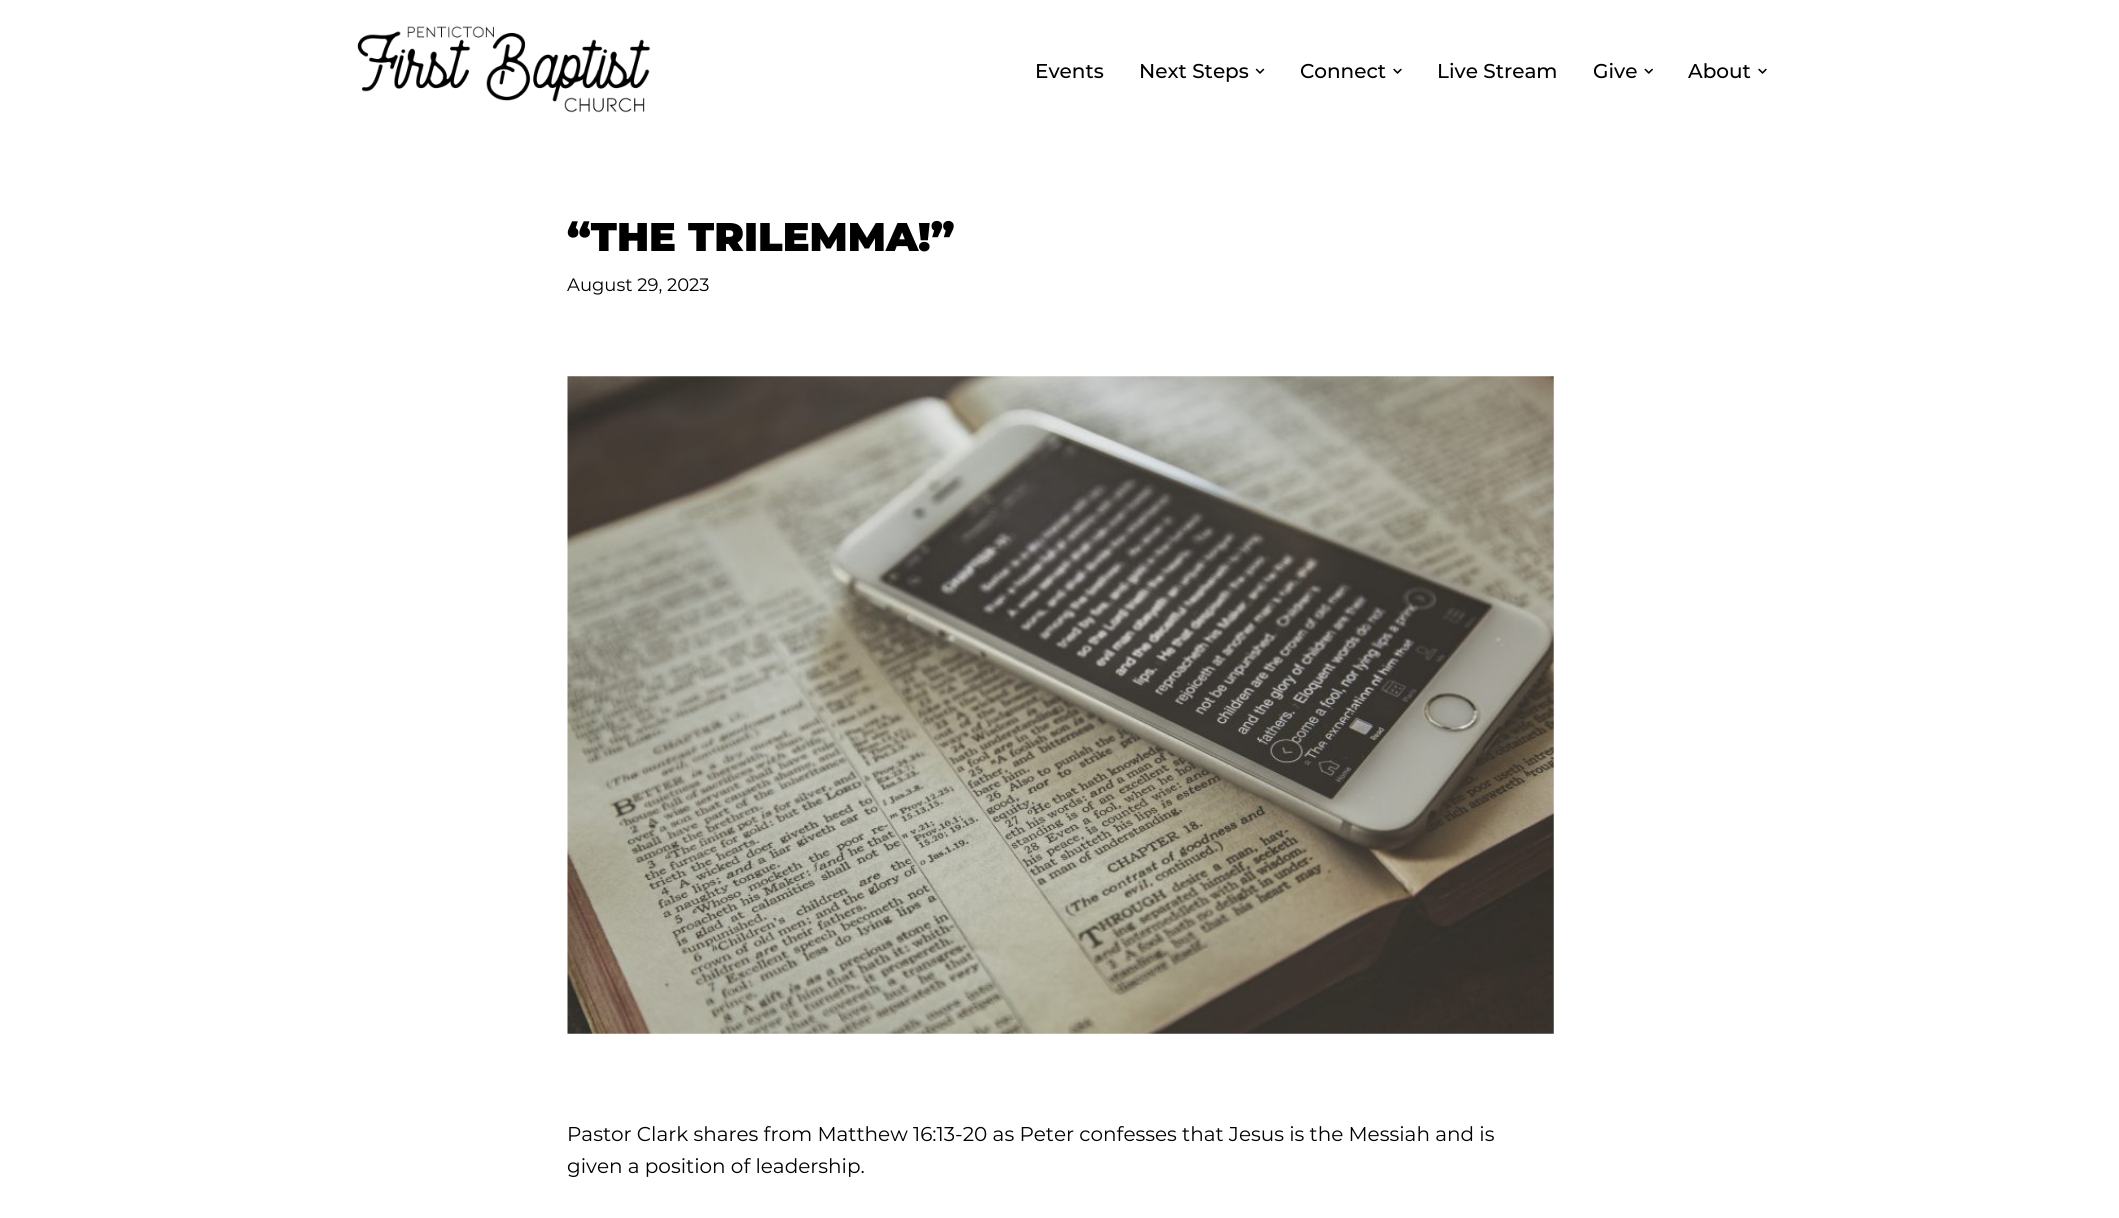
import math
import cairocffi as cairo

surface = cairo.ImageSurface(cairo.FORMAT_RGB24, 2119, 1218)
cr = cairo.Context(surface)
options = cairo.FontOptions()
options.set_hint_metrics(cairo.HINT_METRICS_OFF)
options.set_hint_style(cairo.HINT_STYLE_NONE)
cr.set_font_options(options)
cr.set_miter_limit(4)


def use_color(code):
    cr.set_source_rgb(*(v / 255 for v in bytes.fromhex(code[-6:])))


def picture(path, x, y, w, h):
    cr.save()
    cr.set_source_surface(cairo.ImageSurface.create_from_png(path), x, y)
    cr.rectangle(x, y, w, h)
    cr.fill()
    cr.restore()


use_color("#ffffff")
cr.paint()
picture("img1.png", 357, 26, 294, 87)
cr.select_font_face("Montserrat Medium")
cr.set_font_size(20)
use_color("#000000")
cr.move_to(1035, 78)
cr.show_text("Events")
cr.move_to(1139, 78)
cr.show_text("Next Steps")
picture("img2.png", 1255, 68, 10, 6)
cr.move_to(1300, 78)
cr.show_text("Connect")
picture("img3.png", 1393, 68, 9, 6)
cr.move_to(1437, 78)
cr.show_text("Live Stream")
cr.move_to(1593, 78)
cr.show_text("Give")
picture("img4.png", 1644, 68, 9, 6)
cr.move_to(1688, 78)
cr.show_text("About")
picture("img3.png", 1758, 68, 9, 6)
cr.select_font_face("Montserrat Black")
cr.set_font_size(40)
cr.move_to(567, 251)
cr.show_text("“THE TRILEMMA!”")
cr.select_font_face("Montserrat")
cr.set_font_size(18)
cr.move_to(567, 291)
cr.show_text("August 29, 2023")
picture("img5.png", 567, 376, 987, 658)
cr.set_font_size(20)
cr.move_to(567, 1141)
cr.show_text("Pastor Clark shares from Matthew 16:13-20 as Peter confesses that Jesus is the Messiah and is")
cr.move_to(567, 1173)
cr.show_text("given a position of leadership.")
surface.write_to_png("result.png")
